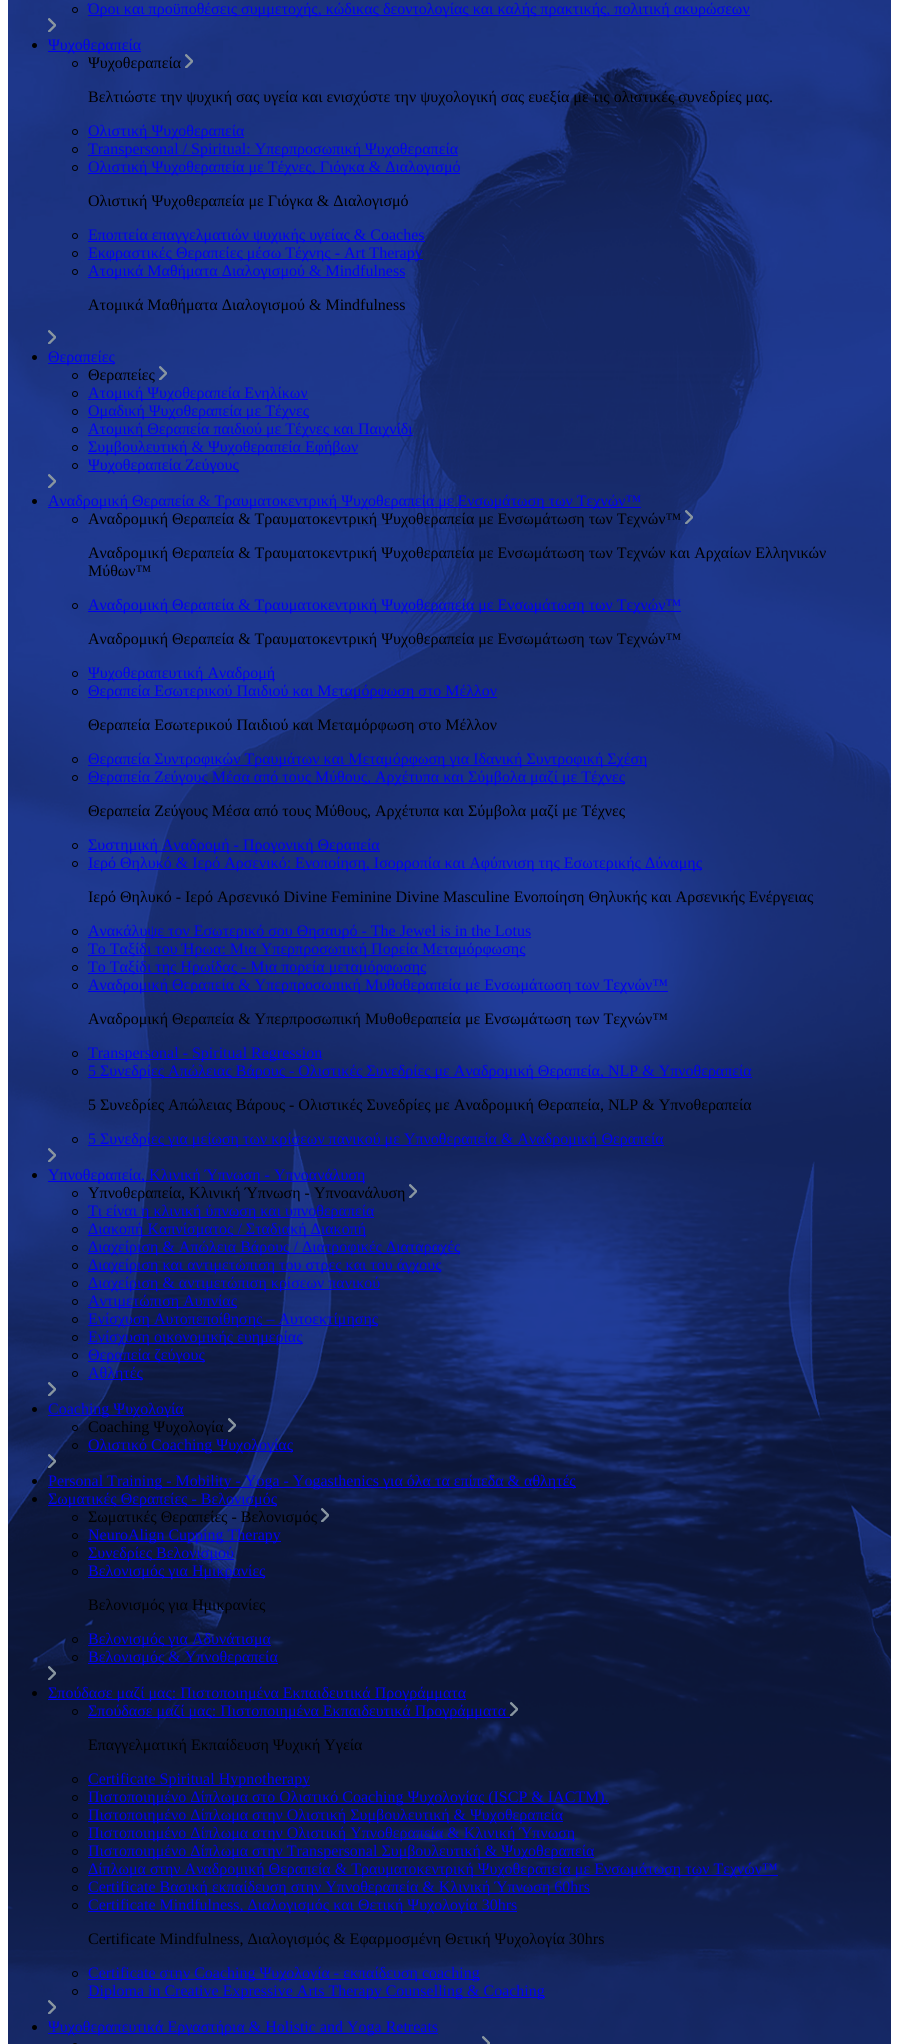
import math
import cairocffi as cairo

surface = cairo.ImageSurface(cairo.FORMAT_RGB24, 899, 2044)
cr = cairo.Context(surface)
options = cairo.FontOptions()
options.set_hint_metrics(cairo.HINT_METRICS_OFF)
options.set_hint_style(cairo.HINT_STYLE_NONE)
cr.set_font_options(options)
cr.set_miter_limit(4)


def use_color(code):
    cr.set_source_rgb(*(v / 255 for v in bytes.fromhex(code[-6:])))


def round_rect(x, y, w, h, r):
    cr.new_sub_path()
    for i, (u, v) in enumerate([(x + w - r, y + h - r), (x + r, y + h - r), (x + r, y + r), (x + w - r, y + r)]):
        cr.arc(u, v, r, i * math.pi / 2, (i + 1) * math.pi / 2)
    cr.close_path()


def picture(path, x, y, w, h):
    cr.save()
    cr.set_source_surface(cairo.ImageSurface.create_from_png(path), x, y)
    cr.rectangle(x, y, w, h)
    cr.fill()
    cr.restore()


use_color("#ffffff")
cr.paint()
picture("img1.png", 8, 0, 883, 2044)
cr.arc(75, 10, 2.5, 0, 2 * math.pi)
use_color("#000000")
cr.set_line_width(1)
cr.stroke()
use_color("#0000ee")
cr.rectangle(88, 15, 662, 1)
cr.fill()
cr.select_font_face("Liberation Serif")
cr.set_font_size(16)
cr.move_to(88, 14)
cr.show_text("Όροι και προϋποθέσεις συμμετοχής, κώδικας δεοντολογίας και καλής πρακτικής, πολιτική ακυρώσεων")
picture("img2.png", 48, 18, 8, 14)
use_color("#000000")
cr.arc(34.5, 45.5, 2.5, 0, 2 * math.pi)
cr.fill()
use_color("#0000ee")
cr.rectangle(48, 51, 93, 1)
cr.fill()
cr.move_to(48, 50)
cr.show_text("Ψυχοθεραπεία")
cr.new_path()
cr.arc(75, 64, 2.5, 0, 2 * math.pi)
use_color("#000000")
cr.stroke()
cr.move_to(88, 68)
cr.show_text("Ψυχοθεραπεία")
picture("img3.png", 185, 54, 8, 14)
cr.move_to(88, 102)
cr.show_text("Βελτιώστε την ψυχική σας υγεία και ενισχύστε την ψυχολογική σας ευεξία με τις ολιστικές συνεδρίες μας.")
cr.new_path()
cr.arc(75, 132, 2.5, 0, 2 * math.pi)
cr.stroke()
use_color("#0000ee")
cr.rectangle(88, 137, 156, 1)
cr.fill()
cr.move_to(88, 136)
cr.show_text("Ολιστική Ψυχοθεραπεία")
cr.new_path()
cr.arc(75, 150, 2.5, 0, 2 * math.pi)
use_color("#000000")
cr.stroke()
use_color("#0000ee")
cr.rectangle(88, 155, 370, 1)
cr.fill()
cr.move_to(88, 154)
cr.show_text("Transpersonal / Spiritual: Υπερπροσωπική Ψυχοθεραπεία")
cr.new_path()
cr.arc(75, 168, 2.5, 0, 2 * math.pi)
use_color("#000000")
cr.stroke()
use_color("#0000ee")
cr.rectangle(88, 173, 372, 1)
cr.fill()
cr.move_to(88, 172)
cr.show_text("Ολιστική Ψυχοθεραπεία με Τέχνες, Γιόγκα & Διαλογισμό")
use_color("#000000")
cr.move_to(88, 206)
cr.show_text("Ολιστική Ψυχοθεραπεία με Γιόγκα & Διαλογισμό")
cr.new_path()
cr.arc(75, 236, 2.5, 0, 2 * math.pi)
cr.stroke()
use_color("#0000ee")
cr.rectangle(88, 241, 337, 1)
cr.fill()
cr.move_to(88, 240)
cr.show_text("Εποπτεία επαγγελματιών ψυχικής υγείας & Coaches")
cr.new_path()
cr.arc(75, 254, 2.5, 0, 2 * math.pi)
use_color("#000000")
cr.stroke()
use_color("#0000ee")
cr.rectangle(88, 259, 335, 1)
cr.fill()
cr.move_to(88, 258)
cr.show_text("Εκφραστικές Θεραπείες μέσω Τέχνης - Art Therapy")
cr.new_path()
cr.arc(75, 272, 2.5, 0, 2 * math.pi)
use_color("#000000")
cr.stroke()
use_color("#0000ee")
cr.rectangle(88, 277, 317, 1)
cr.fill()
cr.move_to(88, 276)
cr.show_text("Ατομικά Μαθήματα Διαλογισμού & Mindfulness")
use_color("#000000")
cr.move_to(88, 310)
cr.show_text("Ατομικά Μαθήματα Διαλογισμού & Mindfulness")
picture("img4.png", 48, 330, 8, 14)
cr.arc(34.5, 357.5, 2.5, 0, 2 * math.pi)
cr.fill()
use_color("#0000ee")
cr.rectangle(48, 363, 67, 1)
cr.fill()
cr.move_to(48, 362)
cr.show_text("Θεραπείες")
cr.new_path()
cr.arc(75, 376, 2.5, 0, 2 * math.pi)
use_color("#000000")
cr.stroke()
cr.move_to(88, 380)
cr.show_text("Θεραπείες")
picture("img5.png", 159, 366, 8, 14)
cr.arc(75, 394, 2.5, 0, 2 * math.pi)
cr.stroke()
use_color("#0000ee")
cr.rectangle(88, 399, 220, 1)
cr.fill()
cr.move_to(88, 398)
cr.show_text("Ατομική Ψυχοθεραπεία Ενηλίκων")
cr.new_path()
cr.arc(75, 412, 2.5, 0, 2 * math.pi)
use_color("#000000")
cr.stroke()
use_color("#0000ee")
cr.rectangle(88, 417, 221, 1)
cr.fill()
cr.move_to(88, 416)
cr.show_text("Ομαδική Ψυχοθεραπεία με Τέχνες")
cr.new_path()
cr.arc(75, 430, 2.5, 0, 2 * math.pi)
use_color("#000000")
cr.stroke()
use_color("#0000ee")
cr.rectangle(88, 435, 325, 1)
cr.fill()
cr.move_to(88, 434)
cr.show_text("Ατομική Θεραπεία παιδιού με Τέχνες και Παιχνίδι")
cr.new_path()
cr.arc(75, 448, 2.5, 0, 2 * math.pi)
use_color("#000000")
cr.stroke()
use_color("#0000ee")
cr.rectangle(88, 453, 270, 1)
cr.fill()
cr.move_to(88, 452)
cr.show_text("Συμβουλευτική & Ψυχοθεραπεία Εφήβων")
cr.new_path()
cr.arc(75, 466, 2.5, 0, 2 * math.pi)
use_color("#000000")
cr.stroke()
use_color("#0000ee")
cr.rectangle(88, 471, 151, 1)
cr.fill()
cr.move_to(88, 470)
cr.show_text("Ψυχοθεραπεία Ζεύγους")
picture("img6.png", 48, 474, 8, 14)
use_color("#000000")
cr.arc(34.5, 501.5, 2.5, 0, 2 * math.pi)
cr.fill()
use_color("#0000ee")
cr.rectangle(48, 507, 593, 1)
cr.fill()
cr.move_to(48, 506)
cr.show_text("Αναδρομική Θεραπεία & Τραυματοκεντρική Ψυχοθεραπεία με Ενσωμάτωση των Τεχνών™")
cr.new_path()
cr.arc(75, 520, 2.5, 0, 2 * math.pi)
use_color("#000000")
cr.stroke()
cr.move_to(88, 524)
cr.show_text("Αναδρομική Θεραπεία & Τραυματοκεντρική Ψυχοθεραπεία με Ενσωμάτωση των Τεχνών™")
picture("img7.png", 685, 510, 8, 14)
cr.move_to(88, 558)
cr.show_text("Αναδρομική Θεραπεία & Τραυματοκεντρική Ψυχοθεραπεία με Ενσωμάτωση των Τεχνών και Αρχαίων Ελληνικών")
cr.move_to(88, 576)
cr.show_text("Μύθων™")
cr.new_path()
cr.arc(75, 606, 2.5, 0, 2 * math.pi)
cr.stroke()
use_color("#0000ee")
cr.rectangle(88, 611, 593, 1)
cr.fill()
cr.move_to(88, 610)
cr.show_text("Αναδρομική Θεραπεία & Τραυματοκεντρική Ψυχοθεραπεία με Ενσωμάτωση των Τεχνών™")
use_color("#000000")
cr.move_to(88, 644)
cr.show_text("Αναδρομική Θεραπεία & Τραυματοκεντρική Ψυχοθεραπεία με Ενσωμάτωση των Τεχνών™")
cr.new_path()
cr.arc(75, 674, 2.5, 0, 2 * math.pi)
cr.stroke()
use_color("#0000ee")
cr.rectangle(88, 679, 187, 1)
cr.fill()
cr.move_to(88, 678)
cr.show_text("Ψυχοθεραπευτική Αναδρομή")
cr.new_path()
cr.arc(75, 692, 2.5, 0, 2 * math.pi)
use_color("#000000")
cr.stroke()
use_color("#0000ee")
cr.rectangle(88, 697, 409, 1)
cr.fill()
cr.move_to(88, 696)
cr.show_text("Θεραπεία Εσωτερικού Παιδιού και Μεταμόρφωση στο Μέλλον")
use_color("#000000")
cr.move_to(88, 730)
cr.show_text("Θεραπεία Εσωτερικού Παιδιού και Μεταμόρφωση στο Μέλλον")
cr.new_path()
cr.arc(75, 760, 2.5, 0, 2 * math.pi)
cr.stroke()
use_color("#0000ee")
cr.rectangle(88, 765, 559, 1)
cr.fill()
cr.move_to(88, 764)
cr.show_text("Θεραπεία Συντροφικών Τραυμάτων και Μεταμόρφωση για Ιδανική Συντροφική Σχέση")
cr.new_path()
cr.arc(75, 778, 2.5, 0, 2 * math.pi)
use_color("#000000")
cr.stroke()
use_color("#0000ee")
cr.rectangle(88, 783, 537, 1)
cr.fill()
cr.move_to(88, 782)
cr.show_text("Θεραπεία Ζεύγους Μέσα από τους Μύθους, Αρχέτυπα και Σύμβολα μαζί με Τέχνες")
use_color("#000000")
cr.move_to(88, 816)
cr.show_text("Θεραπεία Ζεύγους Μέσα από τους Μύθους, Αρχέτυπα και Σύμβολα μαζί με Τέχνες")
cr.new_path()
cr.arc(75, 846, 2.5, 0, 2 * math.pi)
cr.stroke()
use_color("#0000ee")
cr.rectangle(88, 851, 292, 1)
cr.fill()
cr.move_to(88, 850)
cr.show_text("Συστημική Αναδρομή - Προγονική Θεραπεία")
cr.new_path()
cr.arc(75, 864, 2.5, 0, 2 * math.pi)
use_color("#000000")
cr.stroke()
use_color("#0000ee")
cr.rectangle(88, 869, 614, 1)
cr.fill()
cr.move_to(88, 868)
cr.show_text("Ιερό Θηλυκό & Ιερό Αρσενικό: Ενοποίηση, Ισορροπία και Αφύπνιση της Εσωτερικής Δύναμης")
use_color("#000000")
cr.move_to(88, 902)
cr.show_text("Ιερό Θηλυκό - Ιερό Αρσενικό Divine Feminine Divine Masculine Ενοποίηση Θηλυκής και Αρσενικής Ενέργειας")
cr.new_path()
cr.arc(75, 932, 2.5, 0, 2 * math.pi)
cr.stroke()
use_color("#0000ee")
cr.rectangle(88, 937, 443, 1)
cr.fill()
cr.move_to(88, 936)
cr.show_text("Ανακάλυψε τον Εσωτερικό σου Θησαυρό - The Jewel is in the Lotus")
cr.new_path()
cr.arc(75, 950, 2.5, 0, 2 * math.pi)
use_color("#000000")
cr.stroke()
use_color("#0000ee")
cr.rectangle(88, 955, 437, 1)
cr.fill()
cr.move_to(88, 954)
cr.show_text("Το Ταξίδι του Ήρωα: Μια Υπερπροσωπική Πορεία Μεταμόρφωσης")
cr.new_path()
cr.arc(75, 968, 2.5, 0, 2 * math.pi)
use_color("#000000")
cr.stroke()
use_color("#0000ee")
cr.rectangle(88, 973, 338, 1)
cr.fill()
cr.move_to(88, 972)
cr.show_text("Το Ταξίδι της Ηρωίδας - Μια πορεία μεταμόρφωσης")
cr.new_path()
cr.arc(75, 986, 2.5, 0, 2 * math.pi)
use_color("#000000")
cr.stroke()
use_color("#0000ee")
cr.rectangle(88, 991, 580, 1)
cr.fill()
cr.move_to(88, 990)
cr.show_text("Αναδρομική Θεραπεία & Υπερπροσωπική Μυθοθεραπεία με Ενσωμάτωση των Τεχνών™")
use_color("#000000")
cr.move_to(88, 1024)
cr.show_text("Αναδρομική Θεραπεία & Υπερπροσωπική Μυθοθεραπεία με Ενσωμάτωση των Τεχνών™")
cr.new_path()
cr.arc(75, 1054, 2.5, 0, 2 * math.pi)
cr.stroke()
use_color("#0000ee")
cr.rectangle(88, 1059, 234, 1)
cr.fill()
cr.move_to(88, 1058)
cr.show_text("Transpersonal - Spiritual Regression")
cr.new_path()
cr.arc(75, 1072, 2.5, 0, 2 * math.pi)
use_color("#000000")
cr.stroke()
use_color("#0000ee")
cr.rectangle(88, 1077, 664, 1)
cr.fill()
cr.move_to(88, 1076)
cr.show_text("5 Συνεδρίες Απώλειας Βάρους - Ολιστικές Συνεδρίες με Αναδρομική Θεραπεία, NLP & Υπνοθεραπεία")
use_color("#000000")
cr.move_to(88, 1110)
cr.show_text("5 Συνεδρίες Απώλειας Βάρους - Ολιστικές Συνεδρίες με Αναδρομική Θεραπεία, NLP & Υπνοθεραπεία")
cr.new_path()
cr.arc(75, 1140, 2.5, 0, 2 * math.pi)
cr.stroke()
use_color("#0000ee")
cr.rectangle(88, 1145, 576, 1)
cr.fill()
cr.move_to(88, 1144)
cr.show_text("5 Συνεδρίες για μείωση των κρίσεων πανικού με Υπνοθεραπεία & Αναδρομική Θεραπεία")
picture("img8.png", 48, 1148, 8, 14)
use_color("#000000")
cr.arc(34.5, 1175.5, 2.5, 0, 2 * math.pi)
cr.fill()
use_color("#0000ee")
cr.rectangle(48, 1181, 317, 1)
cr.fill()
cr.move_to(48, 1180)
cr.show_text("Υπνοθεραπεία, Κλινική Ύπνωση - Υπνoανάλυση")
cr.new_path()
cr.arc(75, 1194, 2.5, 0, 2 * math.pi)
use_color("#000000")
cr.stroke()
cr.move_to(88, 1198)
cr.show_text("Υπνοθεραπεία, Κλινική Ύπνωση - Υπνoανάλυση")
picture("img9.png", 409, 1184, 8, 14)
cr.arc(75, 1212, 2.5, 0, 2 * math.pi)
cr.stroke()
use_color("#0000ee")
cr.rectangle(88, 1217, 286, 1)
cr.fill()
cr.move_to(88, 1216)
cr.show_text("Τι είναι η κλινική ύπνωση και υπνοθεραπεία")
cr.new_path()
cr.arc(75, 1230, 2.5, 0, 2 * math.pi)
use_color("#000000")
cr.stroke()
use_color("#0000ee")
cr.rectangle(88, 1235, 278, 1)
cr.fill()
cr.move_to(88, 1234)
cr.show_text("Διακοπή Καπνίσματος / Σταδιακή Διακοπή")
cr.new_path()
cr.arc(75, 1248, 2.5, 0, 2 * math.pi)
use_color("#000000")
cr.stroke()
use_color("#0000ee")
cr.rectangle(88, 1253, 372, 1)
cr.fill()
cr.move_to(88, 1252)
cr.show_text("Διαχείριση & Απώλεια Βάρους / Διατροφικές Διαταραχές")
cr.new_path()
cr.arc(75, 1266, 2.5, 0, 2 * math.pi)
use_color("#000000")
cr.stroke()
use_color("#0000ee")
cr.rectangle(88, 1271, 353, 1)
cr.fill()
cr.move_to(88, 1270)
cr.show_text("Διαχείριση και αντιμετώπιση του στρες και του άγχους")
cr.new_path()
cr.arc(75, 1284, 2.5, 0, 2 * math.pi)
use_color("#000000")
cr.stroke()
use_color("#0000ee")
cr.rectangle(88, 1289, 292, 1)
cr.fill()
cr.move_to(88, 1288)
cr.show_text("Διαχείριση & αντιμετώπιση κρίσεων πανικού")
cr.new_path()
cr.arc(75, 1302, 2.5, 0, 2 * math.pi)
use_color("#000000")
cr.stroke()
use_color("#0000ee")
cr.rectangle(88, 1307, 149, 1)
cr.fill()
cr.move_to(88, 1306)
cr.show_text("Αντιμετώπιση Αυπνίας")
cr.new_path()
cr.arc(75, 1320, 2.5, 0, 2 * math.pi)
use_color("#000000")
cr.stroke()
use_color("#0000ee")
cr.rectangle(88, 1325, 290, 1)
cr.fill()
cr.move_to(88, 1324)
cr.show_text("Ενίσχυση Αυτοπεποίθησης – Αυτοεκτίμησης")
cr.new_path()
cr.arc(75, 1338, 2.5, 0, 2 * math.pi)
use_color("#000000")
cr.stroke()
use_color("#0000ee")
cr.rectangle(88, 1343, 215, 1)
cr.fill()
cr.move_to(88, 1342)
cr.show_text("Ενίσχυση οικονομικής ευημερίας")
cr.new_path()
cr.arc(75, 1356, 2.5, 0, 2 * math.pi)
use_color("#000000")
cr.stroke()
use_color("#0000ee")
cr.rectangle(88, 1361, 117, 1)
cr.fill()
cr.move_to(88, 1360)
cr.show_text("Θεραπεία ζεύγους")
cr.new_path()
cr.arc(75, 1374, 2.5, 0, 2 * math.pi)
use_color("#000000")
cr.stroke()
use_color("#0000ee")
cr.rectangle(88, 1379, 55, 1)
cr.fill()
cr.move_to(88, 1378)
cr.show_text("Αθλητές")
picture("img10.png", 48, 1382, 8, 14)
use_color("#000000")
cr.arc(34.5, 1409.5, 2.5, 0, 2 * math.pi)
cr.fill()
use_color("#0000ee")
cr.rectangle(48, 1415, 136, 1)
cr.fill()
cr.move_to(48, 1414)
cr.show_text("Coaching Ψυχολογία")
cr.new_path()
cr.arc(75, 1428, 2.5, 0, 2 * math.pi)
use_color("#000000")
cr.stroke()
cr.move_to(88, 1432)
cr.show_text("Coaching Ψυχολογία")
picture("img11.png", 228, 1418, 8, 14)
cr.arc(75, 1446, 2.5, 0, 2 * math.pi)
cr.stroke()
use_color("#0000ee")
cr.rectangle(88, 1451, 205, 1)
cr.fill()
cr.move_to(88, 1450)
cr.show_text("Ολιστικό Coaching Ψυχολογίας")
picture("img12.png", 48, 1454, 8, 14)
use_color("#000000")
cr.arc(34.5, 1481.5, 2.5, 0, 2 * math.pi)
cr.fill()
use_color("#0000ee")
cr.rectangle(48, 1487, 528, 1)
cr.fill()
cr.move_to(48, 1486)
cr.show_text("Personal Training - Mobility - Yoga - Yogasthenics για όλα τα επίπεδα & αθλητές")
use_color("#000000")
cr.new_path()
cr.arc(34.5, 1499.5, 2.5, 0, 2 * math.pi)
cr.fill()
use_color("#0000ee")
cr.rectangle(48, 1505, 229, 1)
cr.fill()
cr.move_to(48, 1504)
cr.show_text("Σωματικές Θεραπείες - Βελονισμός")
cr.new_path()
cr.arc(75, 1518, 2.5, 0, 2 * math.pi)
use_color("#000000")
cr.stroke()
cr.move_to(88, 1522)
cr.show_text("Σωματικές Θεραπείες - Βελονισμός")
picture("img13.png", 321, 1508, 8, 14)
cr.arc(75, 1536, 2.5, 0, 2 * math.pi)
cr.stroke()
use_color("#0000ee")
cr.rectangle(88, 1541, 193, 1)
cr.fill()
cr.move_to(88, 1540)
cr.show_text("NeuroAlign Cupping Therapy")
cr.new_path()
cr.arc(75, 1554, 2.5, 0, 2 * math.pi)
use_color("#000000")
cr.stroke()
use_color("#0000ee")
cr.rectangle(88, 1559, 146, 1)
cr.fill()
cr.move_to(88, 1558)
cr.show_text("Συνεδρίες Βελονισμού")
cr.new_path()
cr.arc(75, 1572, 2.5, 0, 2 * math.pi)
use_color("#000000")
cr.stroke()
use_color("#0000ee")
cr.rectangle(88, 1577, 177, 1)
cr.fill()
cr.move_to(88, 1576)
cr.show_text("Βελονισμός για Ημικρανίες")
use_color("#000000")
cr.move_to(88, 1610)
cr.show_text("Βελονισμός για Ημικρανίες")
cr.new_path()
cr.arc(75, 1640, 2.5, 0, 2 * math.pi)
cr.stroke()
use_color("#0000ee")
cr.rectangle(88, 1645, 183, 1)
cr.fill()
cr.move_to(88, 1644)
cr.show_text("Βελονισμός για Αδυνάτισμα")
cr.new_path()
cr.arc(75, 1658, 2.5, 0, 2 * math.pi)
use_color("#000000")
cr.stroke()
use_color("#0000ee")
cr.rectangle(88, 1663, 190, 1)
cr.fill()
cr.move_to(88, 1662)
cr.show_text("Βελονισμός & Υπνοθεραπεία")
picture("img14.png", 48, 1666, 8, 14)
use_color("#000000")
cr.arc(34.5, 1693.5, 2.5, 0, 2 * math.pi)
cr.fill()
use_color("#0000ee")
cr.rectangle(48, 1699, 418, 1)
cr.fill()
cr.move_to(48, 1698)
cr.show_text("Σπούδασε μαζί μας: Πιστοποιημένα Εκπαιδευτικά Προγράμματα")
cr.new_path()
cr.arc(75, 1712, 2.5, 0, 2 * math.pi)
use_color("#000000")
cr.stroke()
use_color("#0000ee")
cr.rectangle(88, 1717, 422, 1)
cr.fill()
cr.move_to(88, 1716)
cr.show_text("Σπούδασε μαζί μας: Πιστοποιημένα Εκπαιδευτικά Προγράμματα")
picture("img15.png", 510, 1702, 8, 14)
use_color("#000000")
cr.move_to(88, 1750)
cr.show_text("Επαγγελματική Εκπαίδευση Ψυχική Υγεία")
cr.new_path()
cr.arc(75, 1780, 2.5, 0, 2 * math.pi)
cr.stroke()
use_color("#0000ee")
cr.rectangle(88, 1785, 222, 1)
cr.fill()
cr.move_to(88, 1784)
cr.show_text("Certificate Spiritual Hypnotherapy")
cr.new_path()
cr.arc(75, 1798, 2.5, 0, 2 * math.pi)
use_color("#000000")
cr.stroke()
use_color("#0000ee")
cr.rectangle(88, 1803, 521, 1)
cr.fill()
cr.move_to(88, 1802)
cr.show_text("Πιστοποιημένο Δίπλωμα στο Ολιστικό Coaching Ψυχολογίας (ISCP & IACTM).")
cr.new_path()
cr.arc(75, 1816, 2.5, 0, 2 * math.pi)
use_color("#000000")
cr.stroke()
use_color("#0000ee")
cr.rectangle(88, 1821, 475, 1)
cr.fill()
cr.move_to(88, 1820)
cr.show_text("Πιστοποιημένο Δίπλωμα στην Ολιστική Συμβουλευτική & Ψυχοθεραπεία")
cr.new_path()
cr.arc(75, 1834, 2.5, 0, 2 * math.pi)
use_color("#000000")
cr.stroke()
use_color("#0000ee")
cr.rectangle(88, 1839, 487, 1)
cr.fill()
cr.move_to(88, 1838)
cr.show_text("Πιστοποιημένο Δίπλωμα στην Ολιστική Υπνοθεραπεία & Κλινική Ύπνωση")
cr.new_path()
cr.arc(75, 1852, 2.5, 0, 2 * math.pi)
use_color("#000000")
cr.stroke()
use_color("#0000ee")
cr.rectangle(88, 1857, 506, 1)
cr.fill()
cr.move_to(88, 1856)
cr.show_text("Πιστοποιημένο Δίπλωμα στην Transpersonal Συμβουλευτική & Ψυχοθεραπεία")
cr.new_path()
cr.arc(75, 1870, 2.5, 0, 2 * math.pi)
use_color("#000000")
cr.stroke()
use_color("#0000ee")
cr.rectangle(88, 1875, 690, 1)
cr.fill()
cr.move_to(88, 1874)
cr.show_text("Δίπλωμα στην Αναδρομική Θεραπεία & Τραυματοκεντρική Ψυχοθεραπεία με Ενσωμάτωση των Τεχνών™")
cr.new_path()
cr.arc(75, 1888, 2.5, 0, 2 * math.pi)
use_color("#000000")
cr.stroke()
use_color("#0000ee")
cr.rectangle(88, 1893, 502, 1)
cr.fill()
cr.move_to(88, 1892)
cr.show_text("Certificate Βασική εκπαίδευση στην Υπνοθεραπεία & Κλινική Ύπνωση 60hrs")
cr.new_path()
cr.arc(75, 1906, 2.5, 0, 2 * math.pi)
use_color("#000000")
cr.stroke()
use_color("#0000ee")
cr.rectangle(88, 1911, 429, 1)
cr.fill()
cr.move_to(88, 1910)
cr.show_text("Certificate Mindfulness, Διαλογισμός και Θετική Ψυχολογία 30hrs")
use_color("#000000")
cr.move_to(88, 1944)
cr.show_text("Certificate Mindfulness, Διαλογισμός & Εφαρμοσμένη Θετική Ψυχολογία 30hrs")
cr.new_path()
cr.arc(75, 1974, 2.5, 0, 2 * math.pi)
cr.stroke()
use_color("#0000ee")
cr.rectangle(88, 1979, 392, 1)
cr.fill()
cr.move_to(88, 1978)
cr.show_text("Certificate στην Coaching Ψυχολογία - εκπαίδευση coaching")
cr.new_path()
cr.arc(75, 1992, 2.5, 0, 2 * math.pi)
use_color("#000000")
cr.stroke()
use_color("#0000ee")
cr.rectangle(88, 1997, 457, 1)
cr.fill()
cr.move_to(88, 1996)
cr.show_text("Diploma in Creative Expressive Arts Therapy Counselling & Coaching")
picture("img16.png", 48, 2000, 8, 14)
use_color("#000000")
cr.arc(34.5, 2027.5, 2.5, 0, 2 * math.pi)
cr.fill()
use_color("#0000ee")
cr.rectangle(48, 2033, 390, 1)
cr.fill()
cr.move_to(48, 2032)
cr.show_text("Ψυχοθεραπευτικά Εργαστήρια & Holistic and Yoga Retreats")
picture("img17.png", 482, 2036, 8, 8)
round_rect(72.5, 2043.5, 5, 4, 2.5)
use_color("#000000")
cr.stroke()
surface.write_to_png("result.png")
